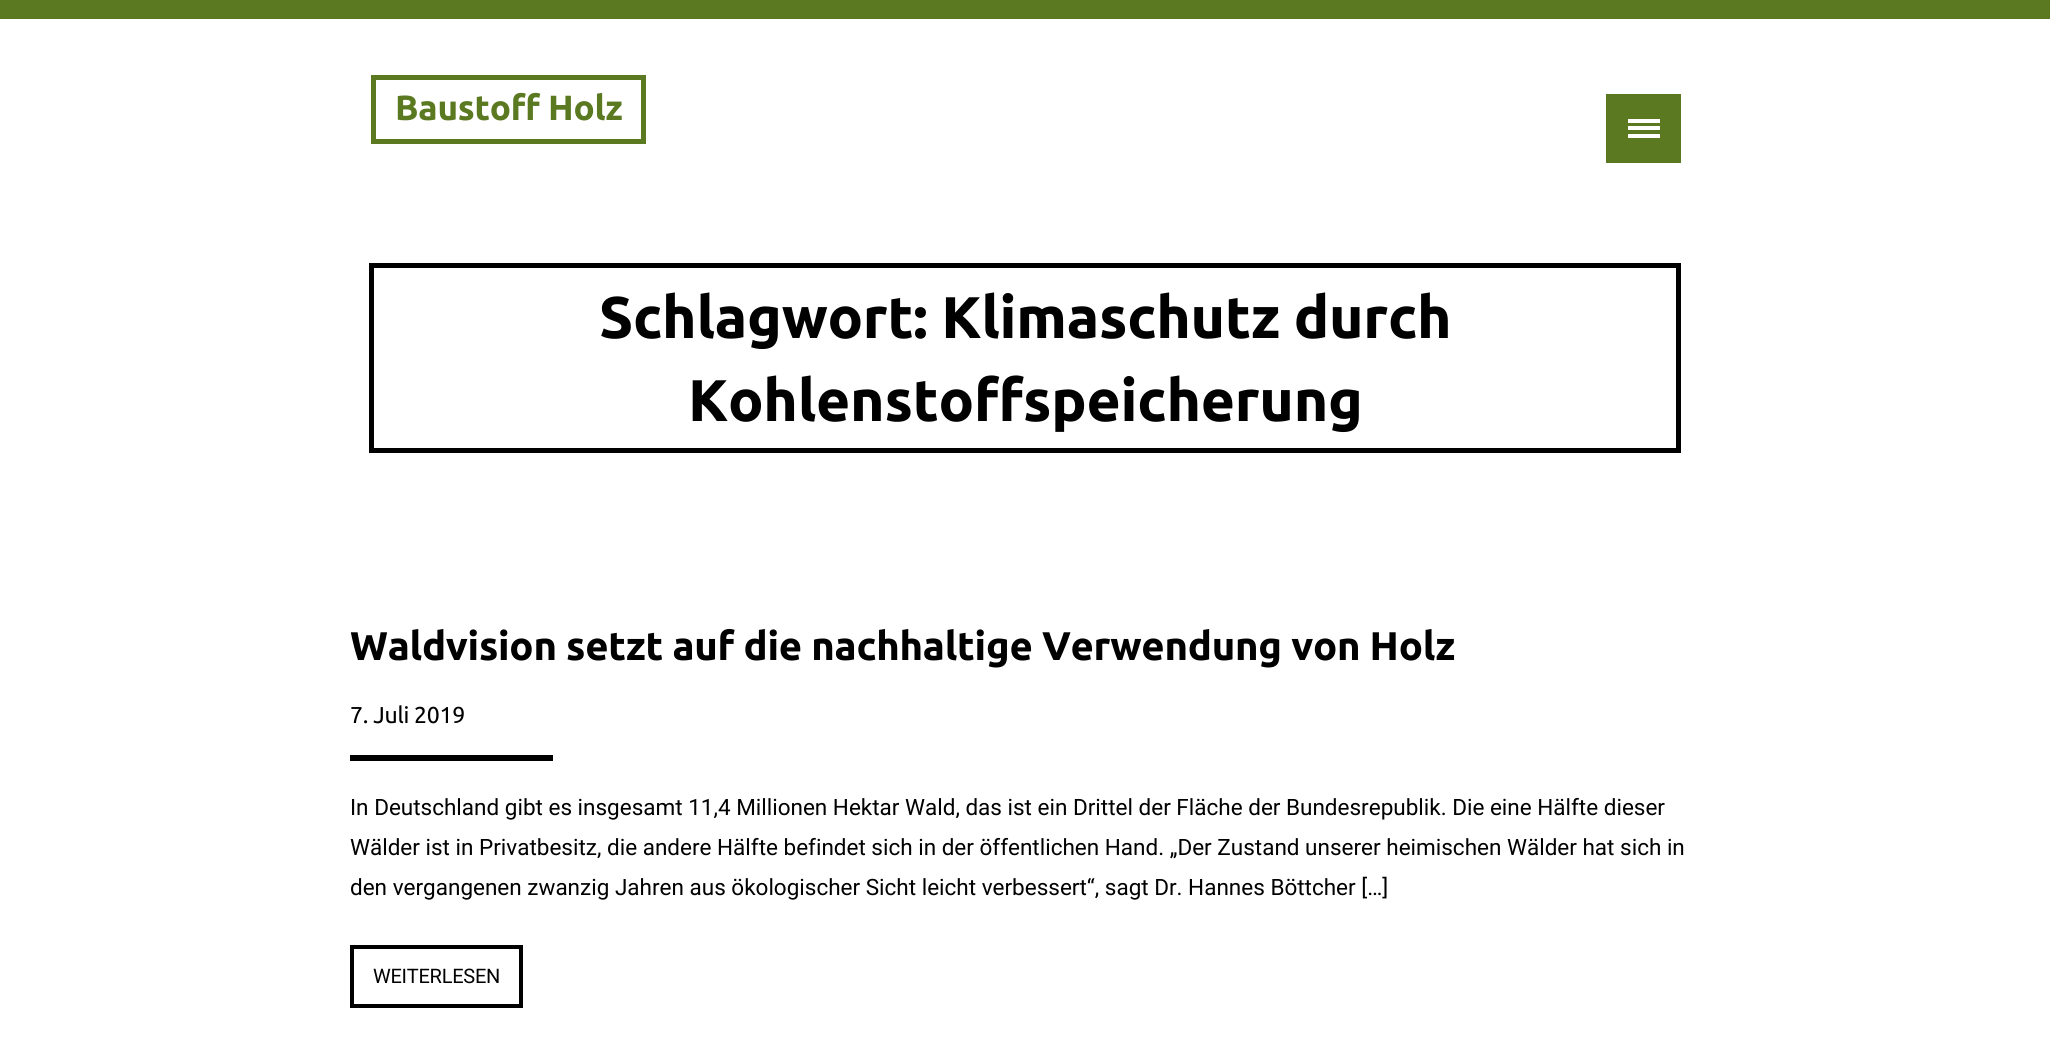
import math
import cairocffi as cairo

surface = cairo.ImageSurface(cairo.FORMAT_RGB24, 2050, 1053)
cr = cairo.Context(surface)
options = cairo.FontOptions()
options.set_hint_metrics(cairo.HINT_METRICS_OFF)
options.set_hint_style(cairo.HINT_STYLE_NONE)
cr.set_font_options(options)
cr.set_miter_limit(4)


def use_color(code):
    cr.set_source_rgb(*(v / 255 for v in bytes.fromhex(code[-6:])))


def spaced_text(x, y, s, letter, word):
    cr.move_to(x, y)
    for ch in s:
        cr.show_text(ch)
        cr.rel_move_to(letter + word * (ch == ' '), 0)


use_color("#ffffff")
cr.paint()
use_color("#5a7921")
cr.rectangle(0, 0, 2050, 19)
cr.fill()
cr.rectangle(373.5, 77.5, 270, 64)
cr.set_line_width(5)
cr.stroke()
cr.select_font_face("Ubuntu", cairo.FONT_SLANT_NORMAL, cairo.FONT_WEIGHT_BOLD)
cr.set_font_size(35)
spaced_text(395, 120, "Baustoff Holz", -0.25, 0)
cr.rectangle(1606, 94, 75, 69)
cr.fill()
use_color("#ffffff")
cr.rectangle(1628, 126, 32, 4)
cr.fill()
cr.rectangle(1628, 119, 32, 4)
cr.fill()
cr.rectangle(1628, 134, 32, 4)
cr.fill()
cr.rectangle(371.5, 265.5, 1307, 185)
use_color("#000000")
cr.stroke()
cr.set_font_size(58.75)
spaced_text(599, 338, "Schlagwort: Klimaschutz durch", -0.25, 0)
spaced_text(688, 421, "Kohlenstoffspeicherung", -0.25, 0)
cr.set_font_size(40)
spaced_text(350, 660, "Waldvision setzt auf die nachhaltige Verwendung von Holz", -0.25, 0)
cr.select_font_face("Ubuntu")
cr.set_font_size(23)
spaced_text(350, 723, "7. Juli 2019", -0.25, 0)
cr.rectangle(350, 755, 203, 6)
cr.fill()
cr.select_font_face("Roboto")
cr.set_font_size(22.5)
cr.move_to(350, 815)
cr.show_text("In Deutschland gibt es insgesamt 11,4 Millionen Hektar Wald, das ist ein Drittel der Fläche der Bundesrepublik. Die eine Hälfte dieser")
cr.move_to(350, 855)
cr.show_text("Wälder ist in Privatbesitz, die andere Hälfte befindet sich in der öffentlichen Hand. „Der Zustand unserer heimischen Wälder hat sich in")
cr.move_to(350, 895)
cr.show_text("den vergangenen zwanzig Jahren aus ökologischer Sicht leicht verbessert“, sagt Dr. Hannes Böttcher […]")
cr.rectangle(352, 947, 169, 59)
cr.set_line_width(4)
cr.stroke()
cr.set_font_size(20)
spaced_text(373, 983, "WEITERLESEN", -0.25, 0)
surface.write_to_png("result.png")
